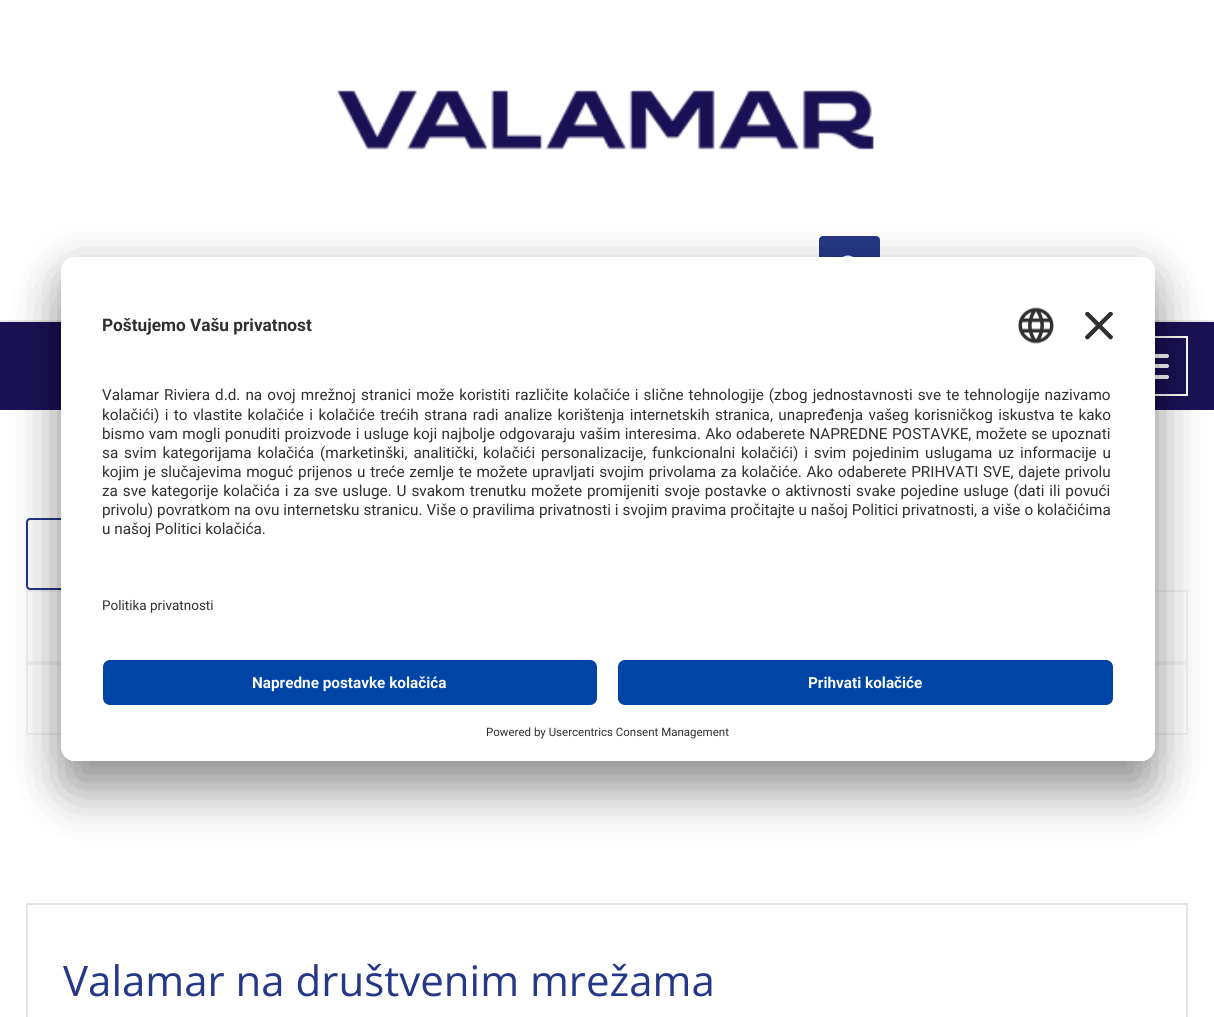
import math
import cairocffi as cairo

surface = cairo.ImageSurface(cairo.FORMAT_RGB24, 1214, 1017)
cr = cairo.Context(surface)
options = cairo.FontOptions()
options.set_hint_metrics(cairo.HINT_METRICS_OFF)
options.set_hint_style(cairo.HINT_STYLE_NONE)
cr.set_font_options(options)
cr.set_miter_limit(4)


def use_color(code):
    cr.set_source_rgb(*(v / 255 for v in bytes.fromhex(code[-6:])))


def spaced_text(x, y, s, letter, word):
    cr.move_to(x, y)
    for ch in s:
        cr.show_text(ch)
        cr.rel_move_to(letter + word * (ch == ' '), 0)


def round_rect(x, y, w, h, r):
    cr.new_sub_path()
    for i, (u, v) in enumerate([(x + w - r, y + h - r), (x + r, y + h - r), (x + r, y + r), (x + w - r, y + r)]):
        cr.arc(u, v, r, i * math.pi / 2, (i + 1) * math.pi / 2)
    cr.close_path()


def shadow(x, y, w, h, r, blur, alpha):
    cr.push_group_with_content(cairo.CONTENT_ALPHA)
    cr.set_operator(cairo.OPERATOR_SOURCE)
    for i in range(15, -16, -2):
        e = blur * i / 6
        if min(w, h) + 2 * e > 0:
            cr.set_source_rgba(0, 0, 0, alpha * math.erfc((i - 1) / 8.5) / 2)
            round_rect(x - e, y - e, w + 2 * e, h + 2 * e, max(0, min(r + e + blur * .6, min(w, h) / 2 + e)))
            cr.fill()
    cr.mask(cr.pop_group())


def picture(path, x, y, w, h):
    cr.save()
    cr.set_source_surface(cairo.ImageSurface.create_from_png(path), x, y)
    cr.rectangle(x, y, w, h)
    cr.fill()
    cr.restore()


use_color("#ffffff")
cr.paint()
use_color("#e9e9e9")
cr.rectangle(0, 320, 1214, 2)
cr.fill()
picture("img1.png", 337, 90, 537, 60)
use_color("#253786")
round_rect(819, 236, 61, 58, 4)
cr.fill()
picture("img2.png", 843, 255, 10, 2)
use_color("#1a1154")
cr.rectangle(0, 322, 1214, 88)
cr.fill()
cr.rectangle(1112, 337, 75, 58)
use_color("#ffffff")
cr.stroke()
round_rect(1131, 354, 38, 4, 2)
cr.fill()
round_rect(1131, 364, 38, 4, 2)
cr.fill()
round_rect(1131, 375, 38, 4, 2)
cr.fill()
round_rect(27, 519, 226, 70, 3)
use_color("#253786")
cr.stroke()
cr.rectangle(27, 591, 1160, 71)
use_color("#f3f3f3")
cr.stroke()
cr.rectangle(27, 664, 1160, 70)
cr.stroke()
use_color("#000000")
shadow(61, 292, 1094, 504, 14, 24.5, 0.3)
shadow(61, 266, 1094, 504, 14, 23, 0.22)
use_color("#ffffff")
round_rect(61, 257, 1094, 504, 14)
cr.fill()
cr.save()
round_rect(61, 257, 1094, 504, 14)
cr.clip()
cr.new_path()
cr.move_to(75, 257)
cr.line_to(1141, 257)
cr.curve_to(1148.5, 257, 1155, 263.5, 1155, 271)
cr.line_to(1155, 646)
cr.line_to(61, 646)
cr.line_to(61, 271)
cr.curve_to(61, 263.5, 67.5, 257, 75, 257)
cr.close_path()
cr.clip()
cr.rectangle(61, 259, 1094, 387)
cr.fill()
cr.restore()
cr.select_font_face("Roboto", cairo.FONT_SLANT_NORMAL, cairo.FONT_WEIGHT_BOLD)
cr.set_font_size(17.25)
use_color("#303030")
cr.move_to(102, 331)
cr.show_text("Poštujemo Vašu privatnost")
picture("img3.png", 1018, 307, 36, 37)
picture("img4.png", 1085, 312, 28, 28)
cr.select_font_face("Roboto")
cr.set_font_size(15.3)
spaced_text(102, 400, "Valamar Riviera d.d. na ovoj mrežnoj stranici može koristiti različite kolačiće i slične tehnologije (zbog jednostavnosti sve te tehnologije nazivamo", 0, 1.25)
spaced_text(102, 420, "kolačići) i to vlastite kolačiće i kolačiće trećih strana radi analize korištenja internetskih stranica, unapređenja vašeg korisničkog iskustva te kako", 0, 1.6)
spaced_text(102, 439, "bismo vam mogli ponuditi proizvode i usluge koji najbolje odgovaraju vašim interesima. Ako odaberete NAPREDNE POSTAVKE, možete se upoznati", 0, 0.6)
spaced_text(102, 458, "sa svim kategorijama kolačića (marketinški, analitički, kolačići personalizacije, funkcionalni kolačići) i svim pojedinim uslugama uz informacije u", 0, 2.1)
spaced_text(102, 477, "kojim je slučajevima moguć prijenos u treće zemlje te možete upravljati svojim privolama za kolačiće. Ako odaberete PRIHVATI SVE, dajete privolu", 0, 0.9)
spaced_text(102, 496, "za sve kategorije kolačića i za sve usluge. U svakom trenutku možete promijeniti svoje postavke o aktivnosti svake pojedine usluge (dati ili povući", 0, 1.1)
spaced_text(102, 515, "privolu) povratkom na ovu internetsku stranicu. Više o pravilima privatnosti i svojim pravima pročitajte u našoj Politici privatnosti, a više o kolačićima", 0, 0.15)
cr.move_to(102, 534)
cr.show_text("u našoj Politici kolačića.")
cr.set_font_size(13.5)
cr.move_to(102, 610)
cr.show_text("Politika privatnosti")
use_color("#ffffff")
cr.new_path()
cr.move_to(61, 646)
cr.line_to(1155, 646)
cr.line_to(1155, 747)
cr.curve_to(1155, 754.5, 1148.5, 761, 1141, 761)
cr.line_to(75, 761)
cr.curve_to(67.5, 761, 61, 754.5, 61, 747)
cr.close_path()
cr.fill()
use_color("#0045a5")
round_rect(103, 660, 494, 45, 7)
cr.fill()
cr.select_font_face("Roboto", cairo.FONT_SLANT_NORMAL, cairo.FONT_WEIGHT_BOLD)
cr.set_font_size(15.3)
use_color("#fafafa")
cr.move_to(252, 688)
cr.show_text("Napredne postavke kolačića")
use_color("#0045a5")
round_rect(618, 660, 495, 45, 7)
cr.fill()
use_color("#fafafa")
cr.move_to(808, 688)
cr.show_text("Prihvati kolačiće")
cr.select_font_face("Roboto")
cr.set_font_size(11.5)
use_color("#303030")
cr.move_to(486, 736)
cr.show_text("Powered by Usercentrics Consent Management")
cr.rectangle(27, 904, 1160, 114)
use_color("#e3e3e3")
cr.stroke()
cr.select_font_face("Open Sans")
cr.set_font_size(42)
use_color("#253786")
cr.move_to(63, 996)
cr.show_text("Valamar na društvenim mrežama")
surface.write_to_png("result.png")
